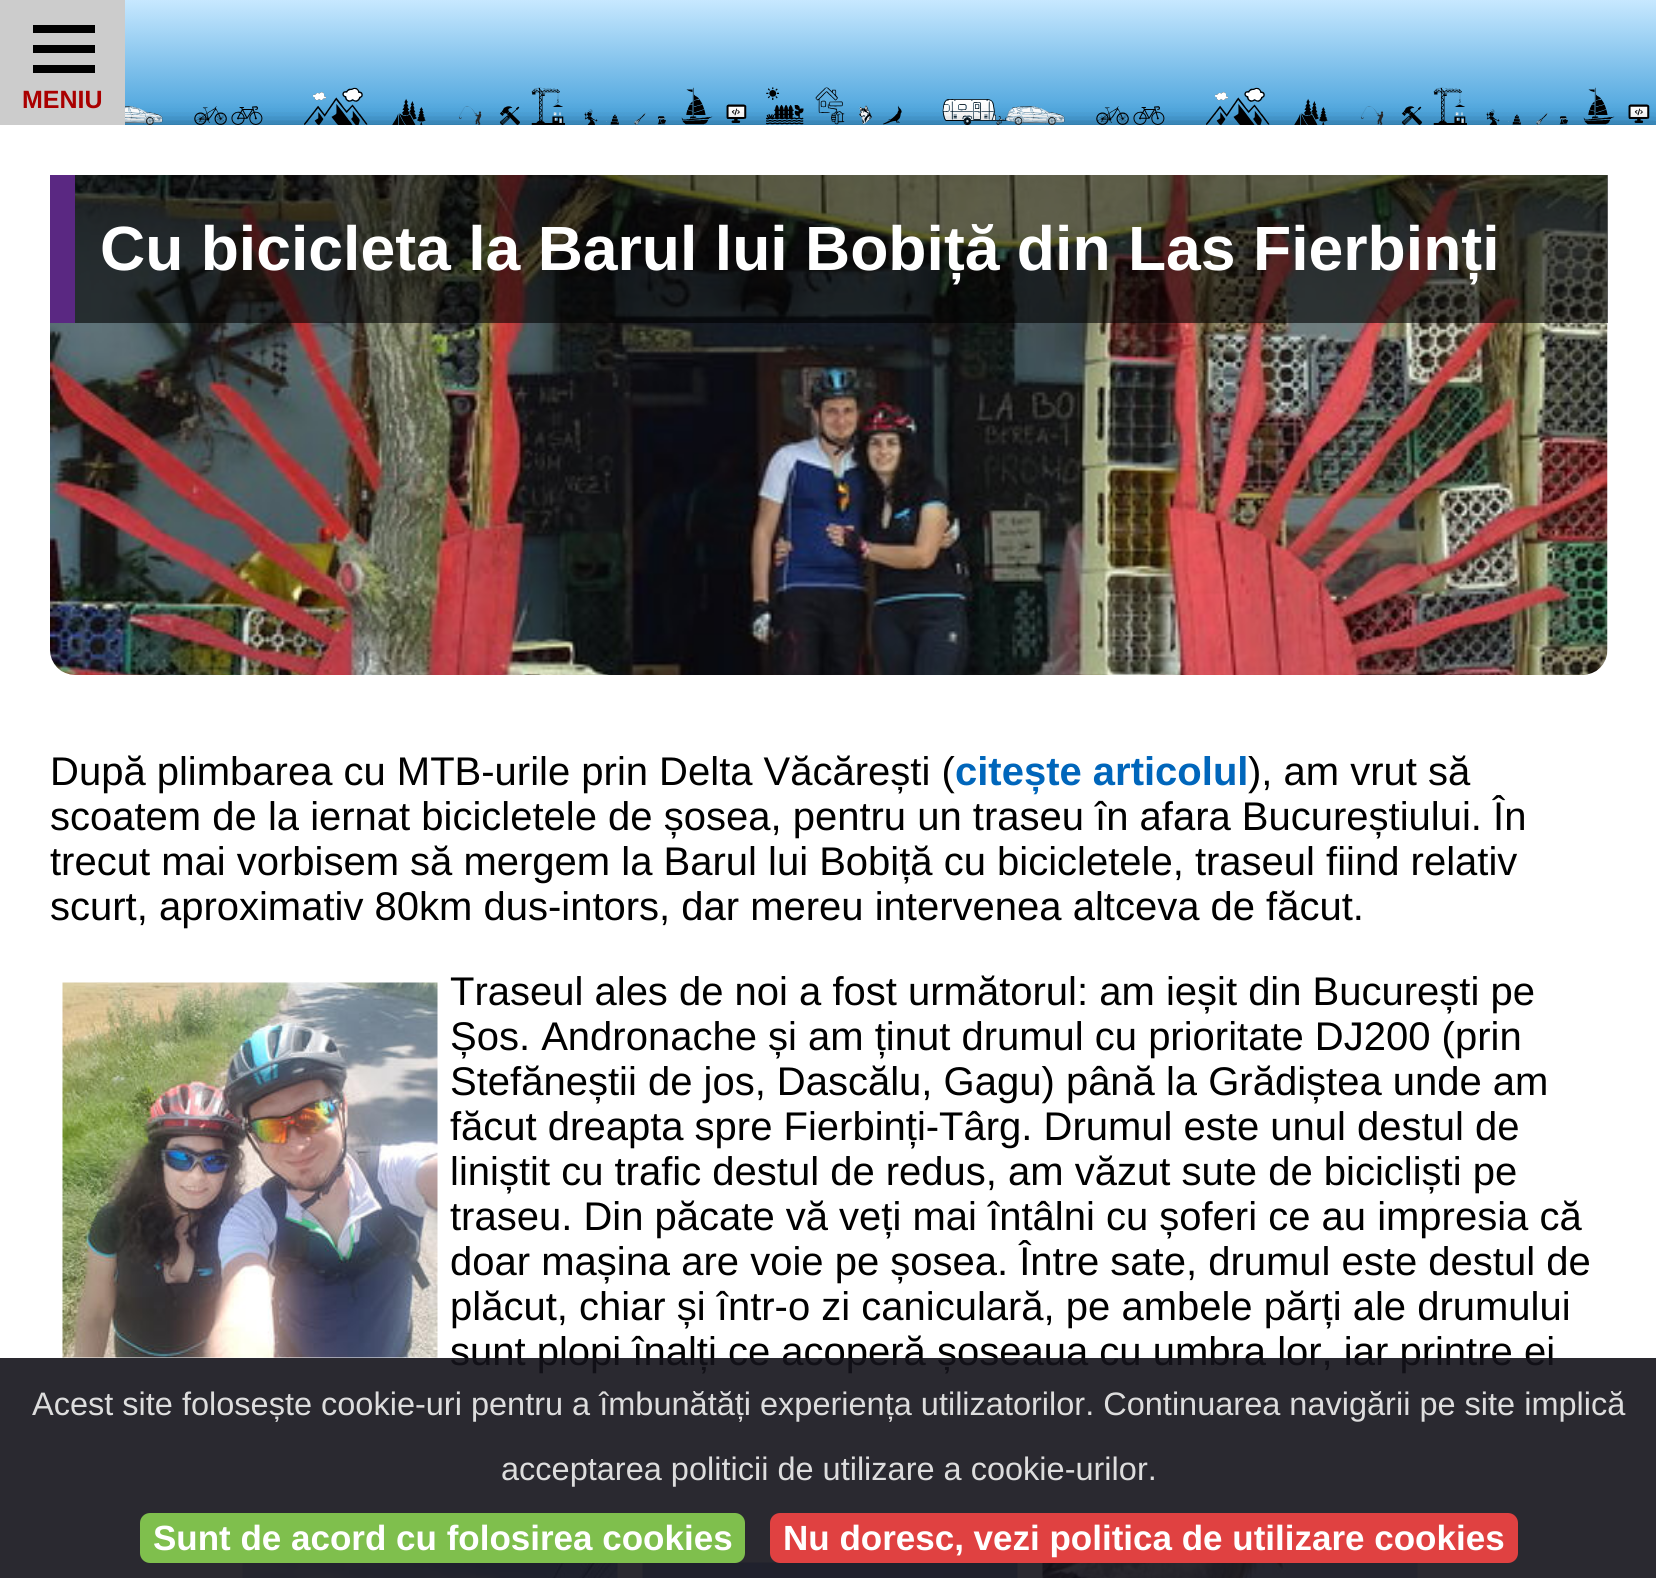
import math
import cairocffi as cairo

surface = cairo.ImageSurface(cairo.FORMAT_RGB24, 1656, 1578)
cr = cairo.Context(surface)
options = cairo.FontOptions()
options.set_hint_metrics(cairo.HINT_METRICS_OFF)
options.set_hint_style(cairo.HINT_STYLE_NONE)
cr.set_font_options(options)
cr.set_miter_limit(4)


def use_color(code):
    cr.set_source_rgb(*(v / 255 for v in bytes.fromhex(code[-6:])))


def round_rect(x, y, w, h, r):
    cr.new_sub_path()
    for i, (u, v) in enumerate([(x + w - r, y + h - r), (x + r, y + h - r), (x + r, y + r), (x + w - r, y + r)]):
        cr.arc(u, v, r, i * math.pi / 2, (i + 1) * math.pi / 2)
    cr.close_path()


def shadow(x, y, w, h, r, blur, alpha):
    cr.push_group_with_content(cairo.CONTENT_ALPHA)
    cr.set_operator(cairo.OPERATOR_SOURCE)
    for i in range(15, -16, -2):
        e = blur * i / 6
        if min(w, h) + 2 * e > 0:
            cr.set_source_rgba(0, 0, 0, alpha * math.erfc((i - 1) / 8.5) / 2)
            round_rect(x - e, y - e, w + 2 * e, h + 2 * e, max(0, min(r + e + blur * .6, min(w, h) / 2 + e)))
            cr.fill()
    cr.mask(cr.pop_group())


def picture(path, x, y, w, h):
    cr.save()
    cr.set_source_surface(cairo.ImageSurface.create_from_png(path), x, y)
    cr.rectangle(x, y, w, h)
    cr.fill()
    cr.restore()


use_color("#ffffff")
cr.paint()
picture("img1.png", 125, 0, 1531, 125)
use_color("#000000")
shadow(0, 135, 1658, 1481, 0, 12.5, 1)
use_color("#cccccc")
cr.rectangle(0, 0, 125, 125)
cr.fill()
use_color("#000000")
cr.rectangle(33, 25, 62, 8)
cr.fill()
cr.rectangle(33, 45, 62, 8)
cr.fill()
cr.rectangle(33, 65, 62, 8)
cr.fill()
cr.select_font_face("Liberation Sans", cairo.FONT_SLANT_NORMAL, cairo.FONT_WEIGHT_BOLD)
cr.set_font_size(25)
use_color("#aa0000")
cr.move_to(22, 108)
cr.show_text("MENIU")
use_color("#ffffff")
cr.rectangle(0, 125, 1656, 1453)
cr.fill()
picture("img2.png", 50, 175, 1558, 500)
cr.set_source_rgba(0, 0, 0, 0.6)
cr.rectangle(75, 175, 1533, 148)
cr.fill()
use_color("#5a2882")
cr.rectangle(50, 175, 25, 148)
cr.fill()
cr.set_font_size(62.5)
use_color("#ffffff")
cr.move_to(100, 270)
cr.show_text("Cu bicicleta la Barul lui Bobiță din Las Fierbinți")
cr.select_font_face("Liberation Sans")
cr.set_font_size(40)
use_color("#000000")
cr.move_to(50, 785)
cr.show_text("După plimbarea cu MTB-urile prin Delta Văcărești (")
cr.select_font_face("Liberation Sans", cairo.FONT_SLANT_NORMAL, cairo.FONT_WEIGHT_BOLD)
use_color("#0066bb")
cr.move_to(955, 785)
cr.show_text("citește articolul")
cr.select_font_face("Liberation Sans")
use_color("#000000")
cr.move_to(1248, 785)
cr.show_text("), am vrut să")
cr.move_to(50, 830)
cr.show_text("scoatem de la iernat bicicletele de șosea, pentru un traseu în afara Bucureștiului. În")
cr.move_to(50, 875)
cr.show_text("trecut mai vorbisem să mergem la Barul lui Bobiță cu bicicletele, traseul fiind relativ")
cr.move_to(50, 920)
cr.show_text("scurt, aproximativ 80km dus-intors, dar mereu intervenea altceva de făcut.")
picture("img3.png", 62, 982, 376, 376)
cr.move_to(450, 1005)
cr.show_text("Traseul ales de noi a fost următorul: am ieșit din București pe")
cr.move_to(450, 1050)
cr.show_text("Șos. Andronache și am ținut drumul cu prioritate DJ200 (prin")
cr.move_to(450, 1095)
cr.show_text("Stefăneștii de jos, Dascălu, Gagu) până la Grădiștea unde am")
cr.move_to(450, 1140)
cr.show_text("făcut dreapta spre Fierbinți-Târg. Drumul este unul destul de")
cr.move_to(450, 1185)
cr.show_text("liniștit cu trafic destul de redus, am văzut sute de bicicliști pe")
cr.move_to(450, 1230)
cr.show_text("traseu. Din păcate vă veți mai întâlni cu șoferi ce au impresia că")
cr.move_to(450, 1275)
cr.show_text("doar mașina are voie pe șosea. Între sate, drumul este destul de")
cr.move_to(450, 1320)
cr.show_text("plăcut, chiar și într-o zi caniculară, pe ambele părți ale drumului")
cr.move_to(450, 1365)
cr.show_text("sunt plopi înalți ce acoperă șoseaua cu umbra lor, iar printre ei")
picture("img4.png", 242, 1563, 376, 15)
picture("img5.png", 642, 1562, 376, 16)
picture("img6.png", 1042, 1563, 376, 15)
cr.set_source_rgba(0.075, 0.071, 0.102, 0.9)
cr.rectangle(0, 1358, 1656, 220)
cr.fill()
cr.set_font_size(32.5)
use_color("#dddddd")
cr.move_to(32, 1415)
cr.show_text("Acest site folosește cookie-uri pentru a îmbunătăți experiența utilizatorilor. Continuarea navigării pe site implică")
cr.move_to(501, 1480)
cr.show_text("acceptarea politicii de utilizare a cookie-urilor.")
use_color("#7fbf4d")
round_rect(140, 1513, 605, 50, 10)
cr.fill()
cr.select_font_face("Liberation Sans", cairo.FONT_SLANT_NORMAL, cairo.FONT_WEIGHT_BOLD)
cr.set_font_size(35)
use_color("#ffffff")
cr.move_to(153, 1550)
cr.show_text("Sunt de acord cu folosirea cookies")
use_color("#e04141")
round_rect(770, 1513, 748, 50, 10)
cr.fill()
use_color("#ffffff")
cr.move_to(783, 1550)
cr.show_text("Nu doresc, vezi politica de utilizare cookies")
surface.write_to_png("result.png")
